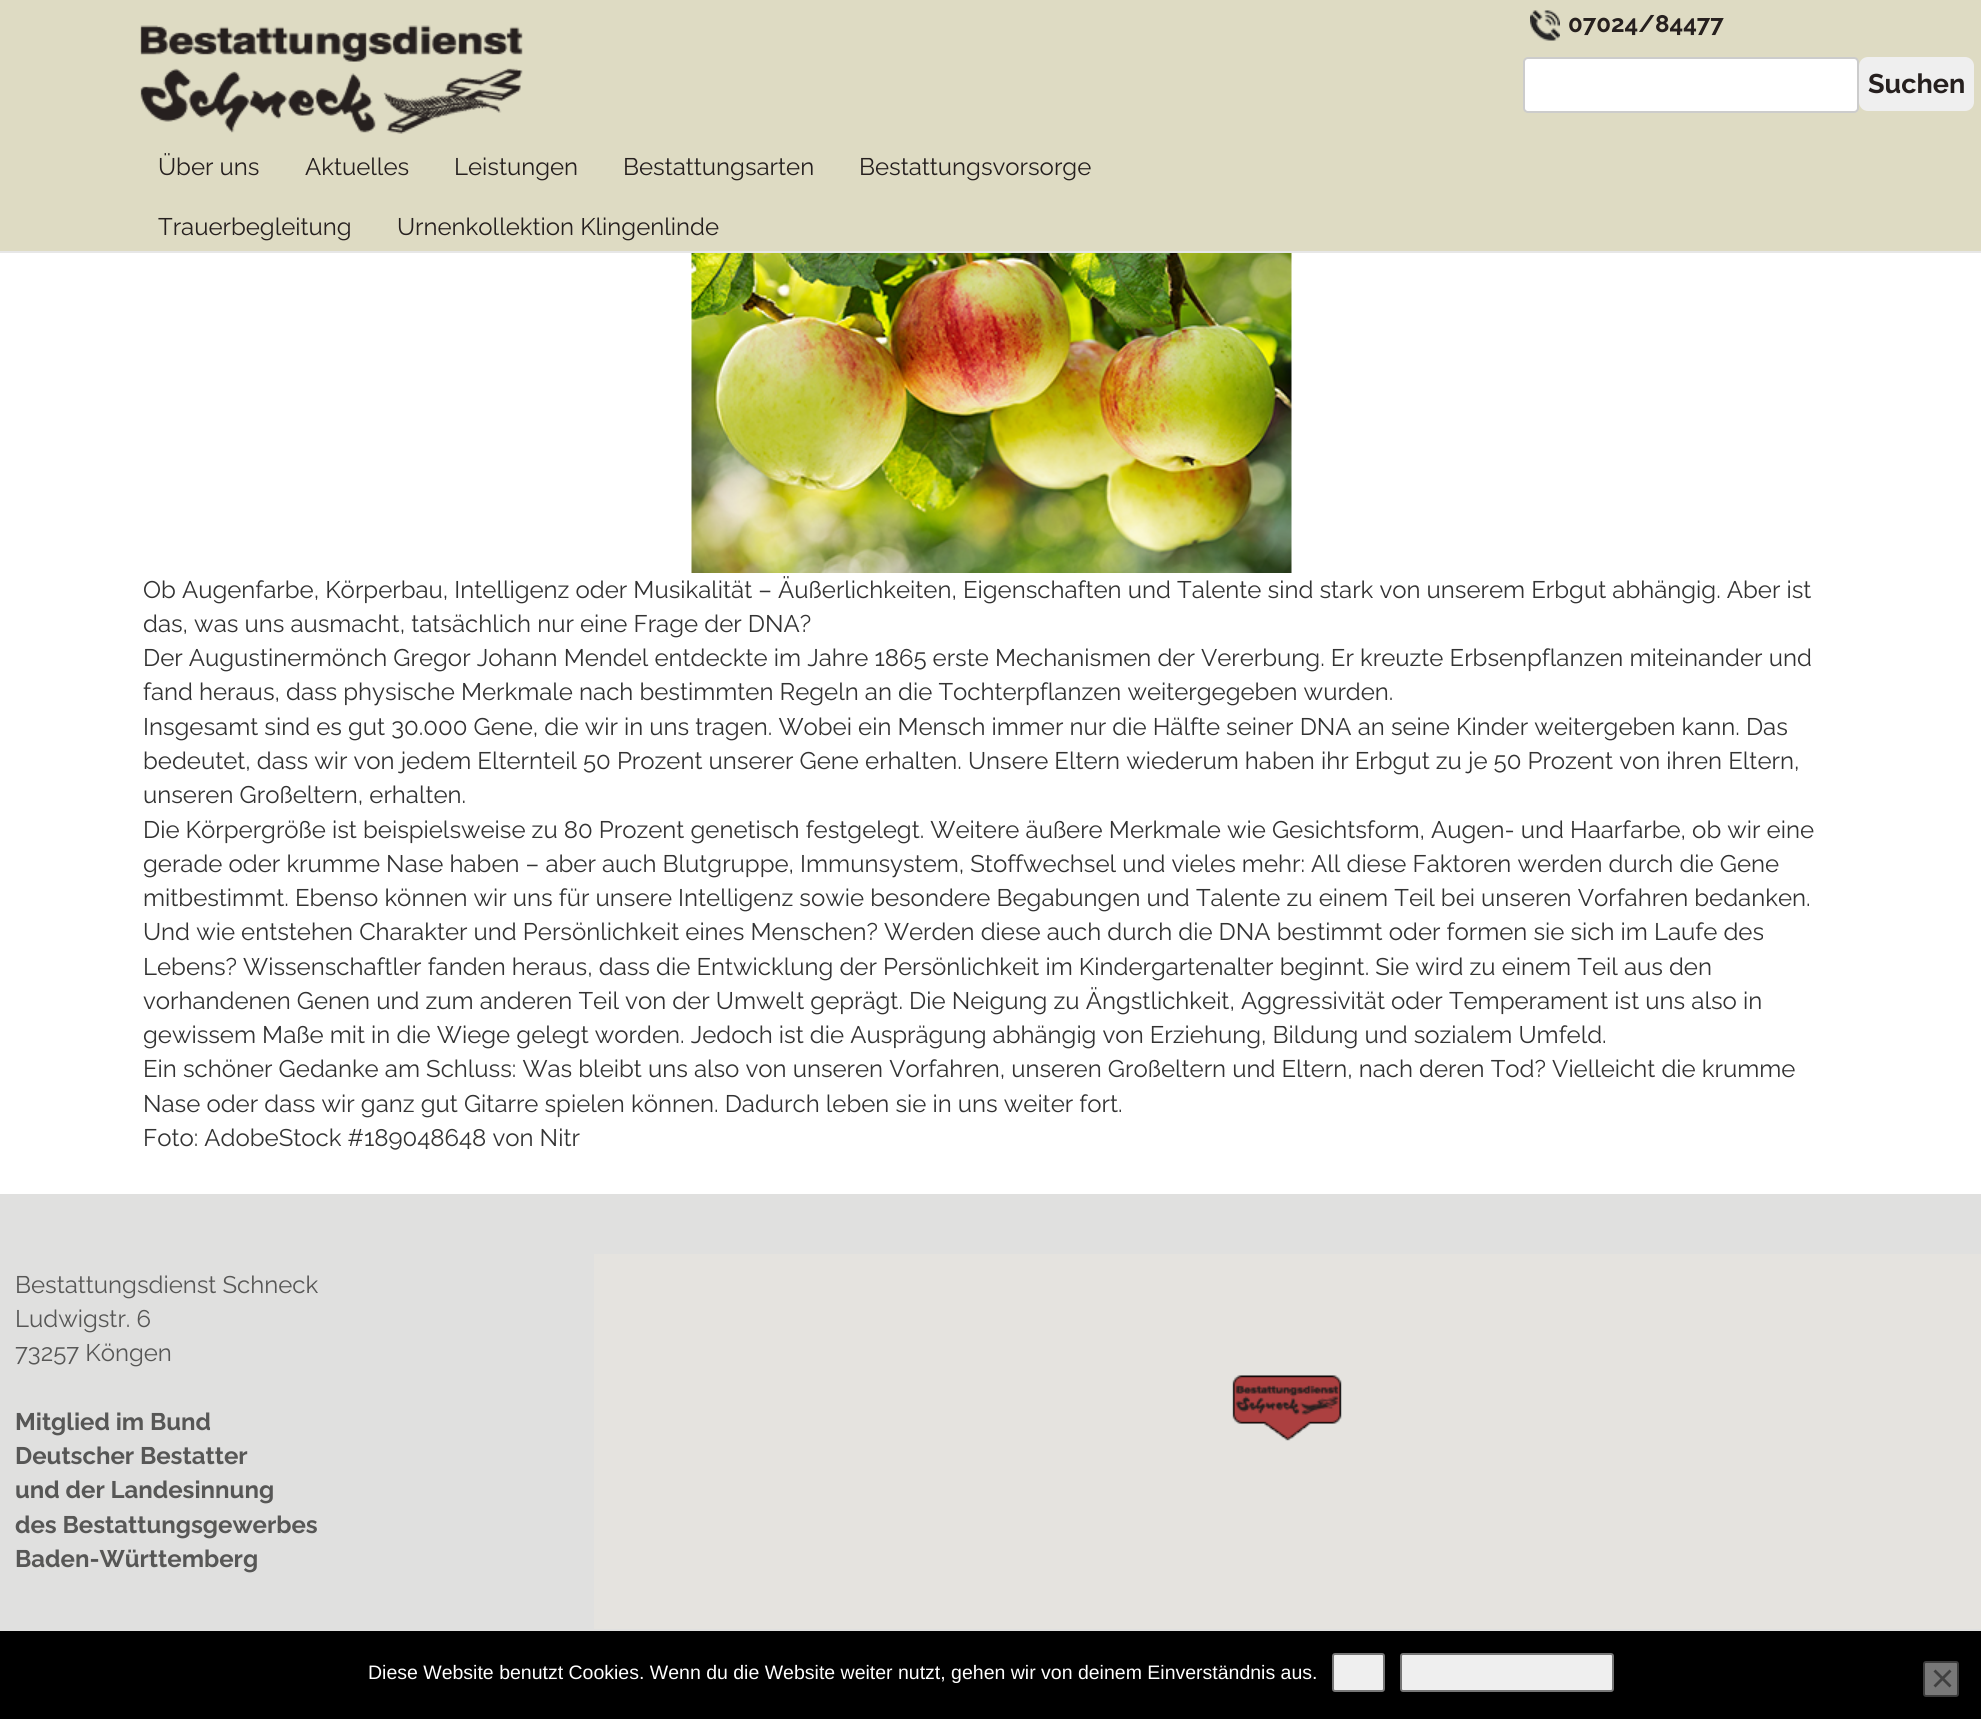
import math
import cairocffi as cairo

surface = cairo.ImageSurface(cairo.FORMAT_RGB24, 1981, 1719)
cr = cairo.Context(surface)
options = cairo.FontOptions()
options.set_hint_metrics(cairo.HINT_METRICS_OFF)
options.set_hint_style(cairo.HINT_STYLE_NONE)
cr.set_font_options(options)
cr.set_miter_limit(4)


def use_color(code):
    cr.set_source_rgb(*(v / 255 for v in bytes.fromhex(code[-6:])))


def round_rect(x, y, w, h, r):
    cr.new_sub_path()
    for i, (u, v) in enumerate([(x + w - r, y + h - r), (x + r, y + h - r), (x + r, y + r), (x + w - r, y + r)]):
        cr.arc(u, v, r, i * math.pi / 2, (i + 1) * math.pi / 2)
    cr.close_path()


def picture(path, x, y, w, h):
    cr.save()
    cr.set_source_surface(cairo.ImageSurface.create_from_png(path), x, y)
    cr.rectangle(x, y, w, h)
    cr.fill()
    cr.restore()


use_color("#ffffff")
cr.paint()
use_color("#dedbc3")
cr.rectangle(0, 0, 1981, 251)
cr.fill()
use_color("#e7e7e7")
cr.rectangle(0, 251, 1981, 2)
cr.fill()
picture("img1.png", 1530, 10, 30, 31)
cr.select_font_face("Raleway", cairo.FONT_SLANT_NORMAL, cairo.FONT_WEIGHT_BOLD)
cr.set_font_size(24)
use_color("#26201f")
cr.move_to(1568, 32)
cr.show_text("07024/84477")
use_color("#ffffff")
round_rect(1524, 58, 334, 54, 4)
cr.fill_preserve()
use_color("#cccccc")
cr.stroke()
use_color("#efefef")
round_rect(1859, 57, 115, 54, 9)
cr.fill()
cr.set_font_size(27)
use_color("#26201f")
cr.move_to(1868, 93)
cr.show_text("Suchen")
picture("img2.png", 140, 25, 383, 109)
cr.select_font_face("Raleway")
cr.set_font_size(24)
cr.move_to(158, 175)
cr.show_text("Über uns")
cr.move_to(305, 175)
cr.show_text("Aktuelles")
cr.move_to(454, 175)
cr.show_text("Leistungen")
cr.move_to(623, 175)
cr.show_text("Bestattungsarten")
cr.move_to(859, 175)
cr.show_text("Bestattungsvorsorge")
cr.move_to(158, 235)
cr.show_text("Trauerbegleitung")
cr.move_to(397, 235)
cr.show_text("Urnenkollektion Klingenlinde")
picture("img3.png", 691, 253, 601, 320)
use_color("#333333")
cr.move_to(143, 598)
cr.show_text("Ob Augenfarbe, Körperbau, Intelligenz oder Musikalität – Äußerlichkeiten, Eigenschaften und Talente sind stark von unserem Erbgut abhängig. Aber ist")
cr.move_to(143, 632)
cr.show_text("das, was uns ausmacht, tatsächlich nur eine Frage der DNA?")
cr.move_to(143, 666)
cr.show_text("Der Augustinermönch Gregor Johann Mendel entdeckte im Jahre 1865 erste Mechanismen der Vererbung. Er kreuzte Erbsenpflanzen miteinander und")
cr.move_to(143, 700)
cr.show_text("fand heraus, dass physische Merkmale nach bestimmten Regeln an die Tochterpflanzen weitergegeben wurden.")
cr.move_to(143, 735)
cr.show_text("Insgesamt sind es gut 30.000 Gene, die wir in uns tragen. Wobei ein Mensch immer nur die Hälfte seiner DNA an seine Kinder weitergeben kann. Das")
cr.move_to(143, 769)
cr.show_text("bedeutet, dass wir von jedem Elternteil 50 Prozent unserer Gene erhalten. Unsere Eltern wiederum haben ihr Erbgut zu je 50 Prozent von ihren Eltern,")
cr.move_to(143, 803)
cr.show_text("unseren Großeltern, erhalten.")
cr.move_to(143, 838)
cr.show_text("Die Körpergröße ist beispielsweise zu 80 Prozent genetisch festgelegt. Weitere äußere Merkmale wie Gesichtsform, Augen- und Haarfarbe, ob wir eine")
cr.move_to(143, 872)
cr.show_text("gerade oder krumme Nase haben – aber auch Blutgruppe, Immunsystem, Stoffwechsel und vieles mehr: All diese Faktoren werden durch die Gene")
cr.move_to(143, 906)
cr.show_text("mitbestimmt. Ebenso können wir uns für unsere Intelligenz sowie besondere Begabungen und Talente zu einem Teil bei unseren Vorfahren bedanken.")
cr.move_to(143, 940)
cr.show_text("Und wie entstehen Charakter und Persönlichkeit eines Menschen? Werden diese auch durch die DNA bestimmt oder formen sie sich im Laufe des")
cr.move_to(143, 975)
cr.show_text("Lebens? Wissenschaftler fanden heraus, dass die Entwicklung der Persönlichkeit im Kindergartenalter beginnt. Sie wird zu einem Teil aus den")
cr.move_to(143, 1009)
cr.show_text("vorhandenen Genen und zum anderen Teil von der Umwelt geprägt. Die Neigung zu Ängstlichkeit, Aggressivität oder Temperament ist uns also in")
cr.move_to(143, 1043)
cr.show_text("gewissem Maße mit in die Wiege gelegt worden. Jedoch ist die Ausprägung abhängig von Erziehung, Bildung und sozialem Umfeld.")
cr.move_to(143, 1077)
cr.show_text("Ein schöner Gedanke am Schluss: Was bleibt uns also von unseren Vorfahren, unseren Großeltern und Eltern, nach deren Tod? Vielleicht die krumme")
cr.move_to(143, 1112)
cr.show_text("Nase oder dass wir ganz gut Gitarre spielen können. Dadurch leben sie in uns weiter fort.")
cr.move_to(143, 1146)
cr.show_text("Foto: AdobeStock #189048648 von Nitr")
use_color("#e0e0df")
cr.rectangle(0, 1194, 1981, 437)
cr.fill()
use_color("#575756")
cr.move_to(15, 1293)
cr.show_text("Bestattungsdienst Schneck")
cr.move_to(15, 1327)
cr.show_text("Ludwigstr. 6")
cr.move_to(15, 1361)
cr.show_text("73257 Köngen")
cr.select_font_face("Raleway", cairo.FONT_SLANT_NORMAL, cairo.FONT_WEIGHT_BOLD)
cr.move_to(15, 1430)
cr.show_text("Mitglied im Bund")
cr.move_to(15, 1464)
cr.show_text("Deutscher Bestatter")
cr.move_to(15, 1498)
cr.show_text("und der Landesinnung")
cr.move_to(15, 1533)
cr.show_text("des Bestattungsgewerbes")
cr.move_to(15, 1567)
cr.show_text("Baden-Württemberg")
use_color("#e5e3df")
cr.rectangle(594, 1254, 1387, 375)
cr.fill()
picture("img4.png", 1232, 1375, 110, 66)
use_color("#000000")
cr.rectangle(0, 1631, 1981, 88)
cr.fill()
cr.select_font_face("Liberation Sans")
cr.set_font_size(19.5)
use_color("#ffffff")
cr.move_to(368, 1679)
cr.show_text("Diese Website benutzt Cookies. Wenn du die Website weiter nutzt, gehen wir von deinem Einverständnis aus.")
use_color("#efefef")
round_rect(1333, 1654, 51, 37, 2)
cr.fill_preserve()
use_color("#767676")
cr.stroke()
use_color("#efefef")
round_rect(1401, 1654, 212, 37, 2)
cr.fill_preserve()
use_color("#767676")
cr.stroke()
use_color("#787878")
round_rect(1924, 1662, 34, 34, 2)
cr.fill_preserve()
use_color("#3b3b3b")
cr.stroke()
use_color("#404040")
cr.new_path()
cr.move_to(1949.5, 1669.5)
cr.line_to(1951.5, 1671.5)
cr.line_to(1935.5, 1687.5)
cr.line_to(1933.5, 1685.5)
cr.close_path()
cr.fill()
cr.new_path()
cr.move_to(1933.5, 1671.5)
cr.line_to(1935.5, 1669.5)
cr.line_to(1951.5, 1685.5)
cr.line_to(1949.5, 1687.5)
cr.close_path()
cr.fill()
surface.write_to_png("result.png")
